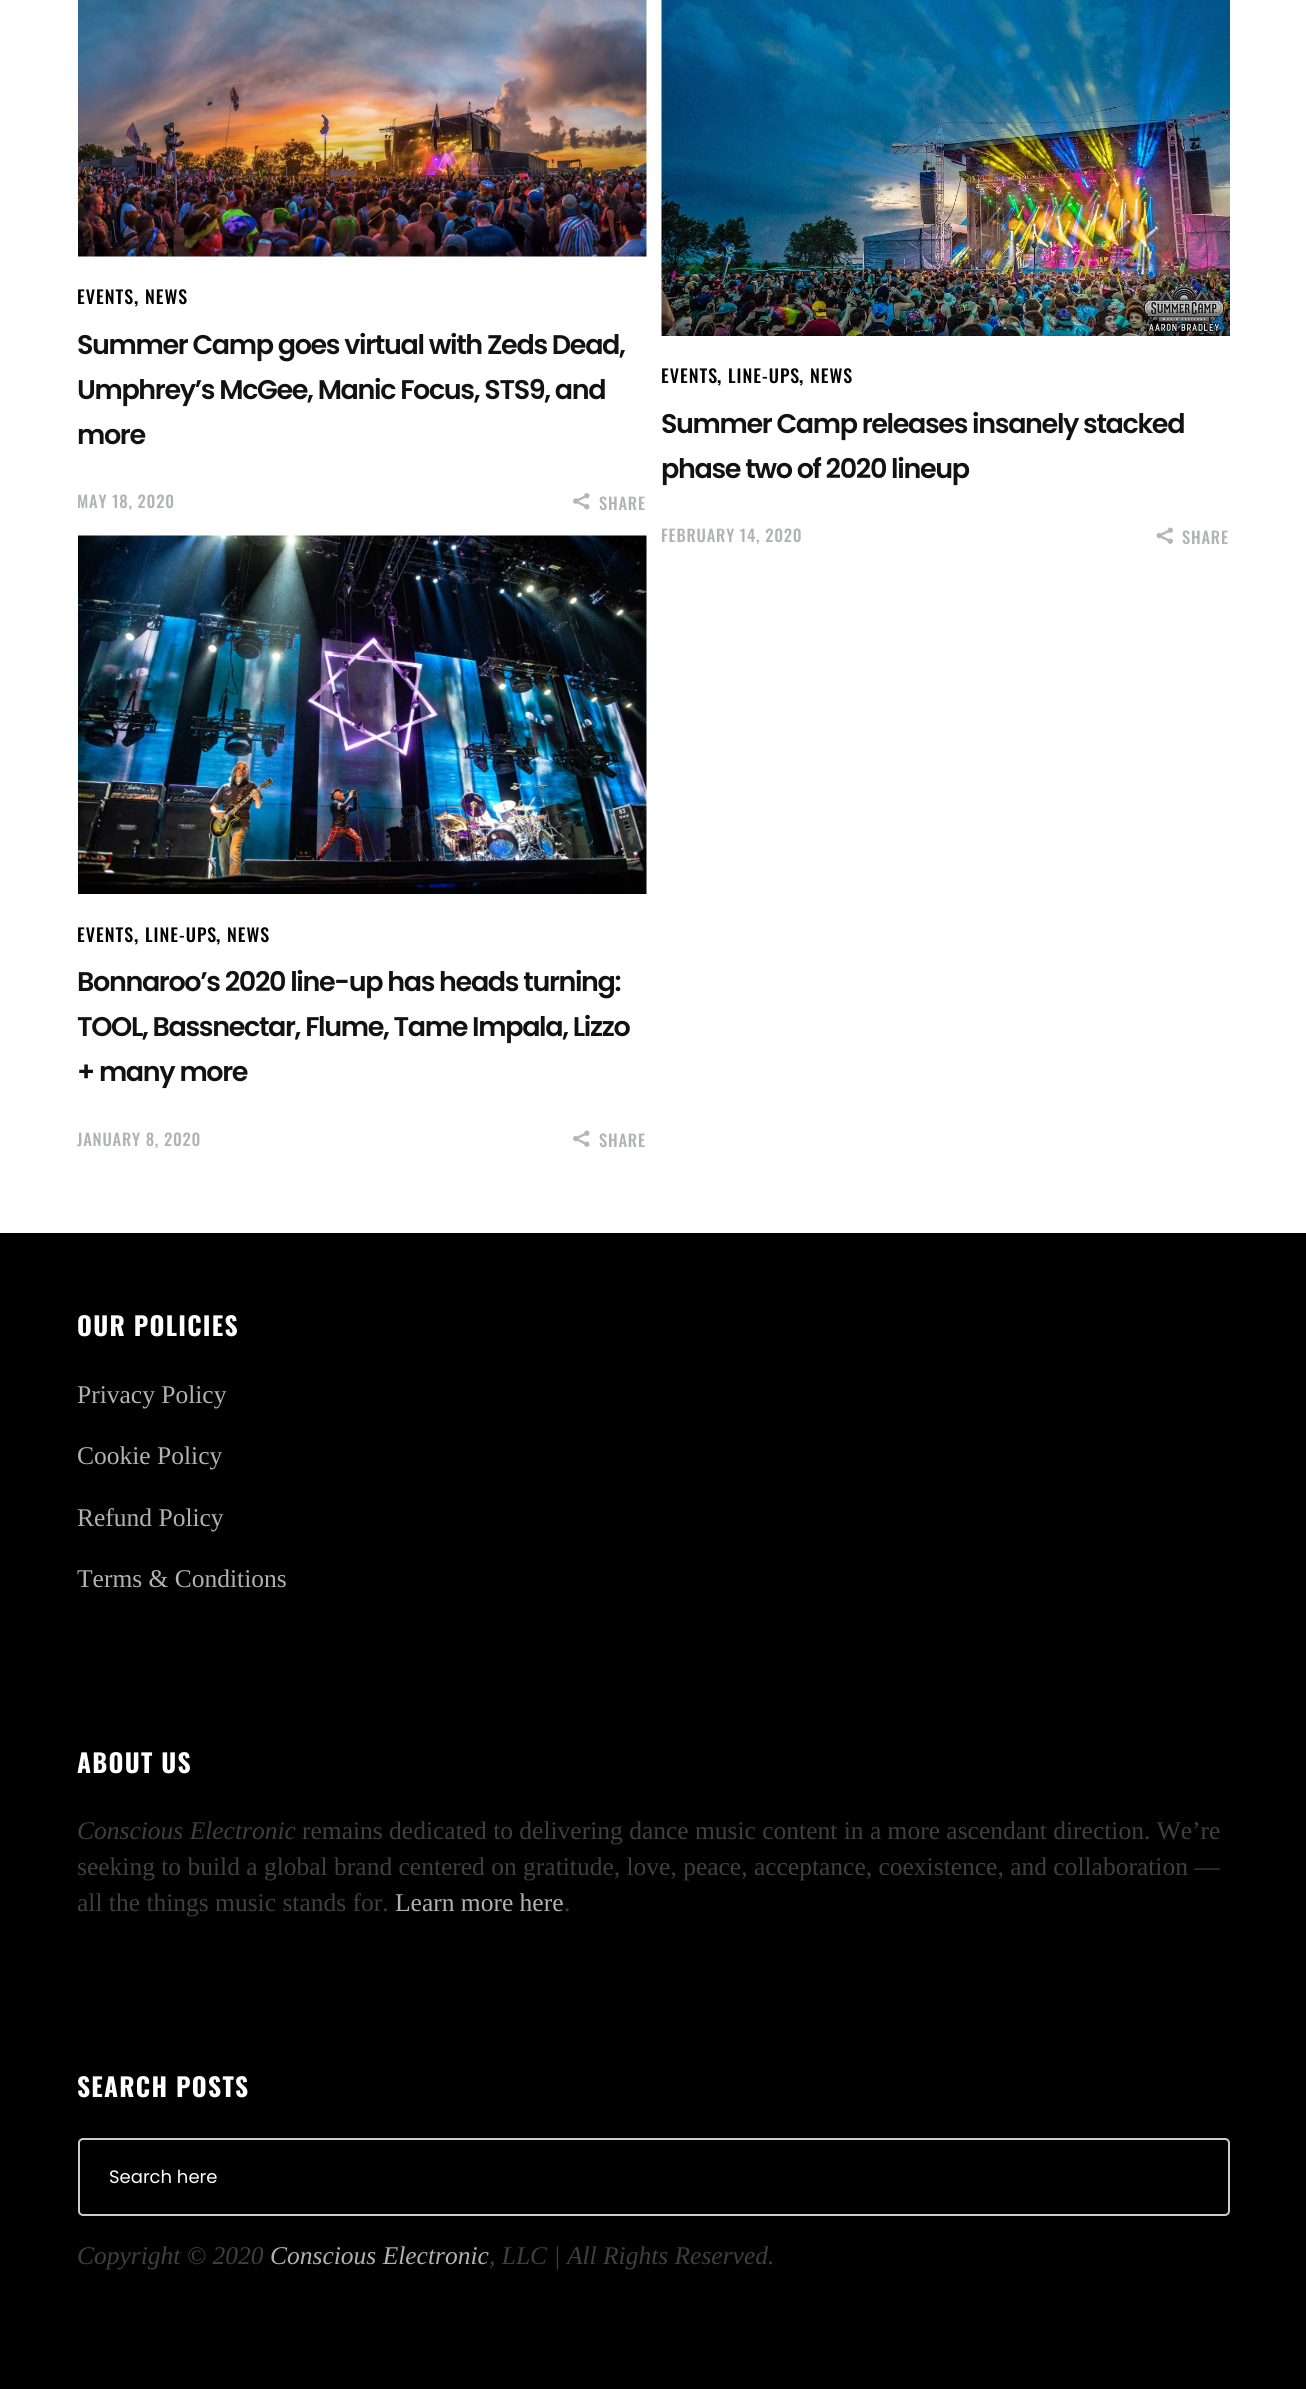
import math
import cairocffi as cairo

surface = cairo.ImageSurface(cairo.FORMAT_RGB24, 1306, 2389)
cr = cairo.Context(surface)
options = cairo.FontOptions()
options.set_hint_metrics(cairo.HINT_METRICS_OFF)
options.set_hint_style(cairo.HINT_STYLE_NONE)
cr.set_font_options(options)
cr.set_miter_limit(4)


def use_color(code):
    cr.set_source_rgb(*(v / 255 for v in bytes.fromhex(code[-6:])))


def spaced_text(x, y, s, letter, word):
    cr.move_to(x, y)
    for ch in s:
        cr.show_text(ch)
        cr.rel_move_to(letter + word * (ch == ' '), 0)


def round_rect(x, y, w, h, r):
    cr.new_sub_path()
    for i, (u, v) in enumerate([(x + w - r, y + h - r), (x + r, y + h - r), (x + r, y + r), (x + w - r, y + r)]):
        cr.arc(u, v, r, i * math.pi / 2, (i + 1) * math.pi / 2)
    cr.close_path()


def picture(path, x, y, w, h):
    cr.save()
    cr.set_source_surface(cairo.ImageSurface.create_from_png(path), x, y)
    cr.rectangle(x, y, w, h)
    cr.fill()
    cr.restore()


use_color("#ffffff")
cr.paint()
picture("img1.png", 78, 0, 569, 257)
cr.select_font_face("Oswald Medium")
cr.set_font_size(18)
use_color("#000000")
spaced_text(77, 304, "EVENTS", 1, 0)
cr.select_font_face("Oswald", cairo.FONT_SLANT_NORMAL, cairo.FONT_WEIGHT_BOLD)
spaced_text(134, 304, ",", 1, 0)
cr.select_font_face("Oswald Medium")
spaced_text(145, 304, "NEWS", 1, 0)
cr.select_font_face("Poppins SemiBold")
cr.set_font_size(27)
use_color("#121212")
spaced_text(77, 354, "Summer Camp goes virtual with Zeds Dead,", -1.35, 0)
spaced_text(77, 399, "Umphrey’s McGee, Manic Focus, STS9, and", -1.35, 0)
spaced_text(77, 444, "more", -1.35, 0)
cr.select_font_face("Oswald Medium")
cr.set_font_size(16.5)
use_color("#b1b2b2")
spaced_text(77, 508, "MAY 18, 2020", 0.8, 0)
picture("img2.png", 573, 493, 17, 17)
spaced_text(599, 510, "SHARE", 0.8, 0)
picture("img3.png", 661, 0, 569, 336)
cr.set_font_size(18)
use_color("#000000")
spaced_text(661, 383, "EVENTS", 1, 0)
cr.select_font_face("Oswald", cairo.FONT_SLANT_NORMAL, cairo.FONT_WEIGHT_BOLD)
spaced_text(717, 383, ",", 1, 0)
cr.select_font_face("Oswald Medium")
spaced_text(728, 383, "LINE-UPS", 1, 0)
cr.select_font_face("Oswald", cairo.FONT_SLANT_NORMAL, cairo.FONT_WEIGHT_BOLD)
spaced_text(799, 383, ",", 1, 0)
cr.select_font_face("Oswald Medium")
spaced_text(810, 383, "NEWS", 1, 0)
cr.select_font_face("Poppins SemiBold")
cr.set_font_size(27)
use_color("#121212")
spaced_text(661, 433, "Summer Camp releases insanely stacked", -1.35, 0)
spaced_text(661, 478, "phase two of 2020 lineup", -1.35, 0)
cr.select_font_face("Oswald Medium")
cr.set_font_size(16.5)
use_color("#b1b2b2")
spaced_text(661, 542, "FEBRUARY 14, 2020", 0.8, 0)
picture("img4.png", 1156, 527, 17, 17)
spaced_text(1182, 544, "SHARE", 0.8, 0)
picture("img5.png", 78, 535, 569, 359)
cr.set_font_size(18)
use_color("#000000")
spaced_text(77, 942, "EVENTS", 1, 0)
cr.select_font_face("Oswald", cairo.FONT_SLANT_NORMAL, cairo.FONT_WEIGHT_BOLD)
spaced_text(134, 942, ",", 1, 0)
cr.select_font_face("Oswald Medium")
spaced_text(145, 942, "LINE-UPS", 1, 0)
cr.select_font_face("Oswald", cairo.FONT_SLANT_NORMAL, cairo.FONT_WEIGHT_BOLD)
spaced_text(216, 942, ",", 1, 0)
cr.select_font_face("Oswald Medium")
spaced_text(227, 942, "NEWS", 1, 0)
cr.select_font_face("Poppins SemiBold")
cr.set_font_size(27)
use_color("#121212")
spaced_text(77, 991, "Bonnaroo’s 2020 line-up has heads turning:", -1.35, 0)
spaced_text(77, 1036, "TOOL, Bassnectar, Flume, Tame Impala, Lizzo", -1.35, 0)
spaced_text(77, 1081, "+ many more", -1.35, 0)
cr.select_font_face("Oswald Medium")
cr.set_font_size(16.5)
use_color("#b1b2b2")
spaced_text(77, 1146, "JANUARY 8, 2020", 0.8, 0)
picture("img6.png", 573, 1130, 17, 17)
spaced_text(599, 1147, "SHARE", 0.8, 0)
use_color("#000000")
cr.rectangle(0, 1233, 1306, 1156)
cr.fill()
cr.select_font_face("Oswald", cairo.FONT_SLANT_NORMAL, cairo.FONT_WEIGHT_BOLD)
cr.set_font_size(25.5)
use_color("#ffffff")
spaced_text(77, 1336, "OUR POLICIES", 1.25, 0)
cr.select_font_face("Liberation Serif")
use_color("#b1b2b2")
cr.move_to(77, 1403)
cr.show_text("Privacy Policy")
cr.move_to(77, 1464)
cr.show_text("Cookie Policy")
cr.move_to(77, 1526)
cr.show_text("Refund Policy")
cr.move_to(77, 1587)
cr.show_text("Terms & Conditions")
cr.select_font_face("Oswald", cairo.FONT_SLANT_NORMAL, cairo.FONT_WEIGHT_BOLD)
use_color("#ffffff")
spaced_text(77, 1773, "ABOUT US", 1.25, 0)
cr.select_font_face("Liberation Serif", cairo.FONT_SLANT_ITALIC)
use_color("#3f3f3f")
cr.move_to(77, 1839)
cr.show_text("Conscious Electronic")
cr.select_font_face("Liberation Serif")
cr.move_to(302, 1839)
cr.show_text("remains dedicated to delivering dance music content in a more ascendant direction. We’re")
cr.move_to(77, 1875)
cr.show_text("seeking to build a global brand centered on gratitude, love, peace, acceptance, coexistence, and collaboration —")
cr.move_to(77, 1911)
cr.show_text("all the things music stands for.")
use_color("#b1b2b2")
cr.move_to(395, 1911)
cr.show_text("Learn more here")
use_color("#3f3f3f")
cr.move_to(564, 1911)
cr.show_text(".")
cr.select_font_face("Oswald", cairo.FONT_SLANT_NORMAL, cairo.FONT_WEIGHT_BOLD)
use_color("#ffffff")
spaced_text(77, 2097, "SEARCH POSTS", 1.25, 0)
round_rect(79, 2139, 1150, 76, 4)
use_color("#cccccc")
cr.stroke()
cr.save()
cr.rectangle(110, 2163, 1081, 27)
cr.clip()
cr.select_font_face("Poppins")
cr.set_font_size(18)
use_color("#ffffff")
cr.move_to(109, 2183)
cr.show_text("Search here")
cr.restore()
cr.select_font_face("Liberation Serif", cairo.FONT_SLANT_ITALIC)
use_color("#3f3f3f")
cr.move_to(77, 2264)
cr.show_text("Copyright © 2020")
use_color("#b1b2b2")
cr.move_to(270, 2264)
cr.show_text("Conscious Electronic")
use_color("#3f3f3f")
cr.move_to(489, 2264)
cr.show_text(", LLC | All Rights Reserved.")
surface.write_to_png("result.png")
